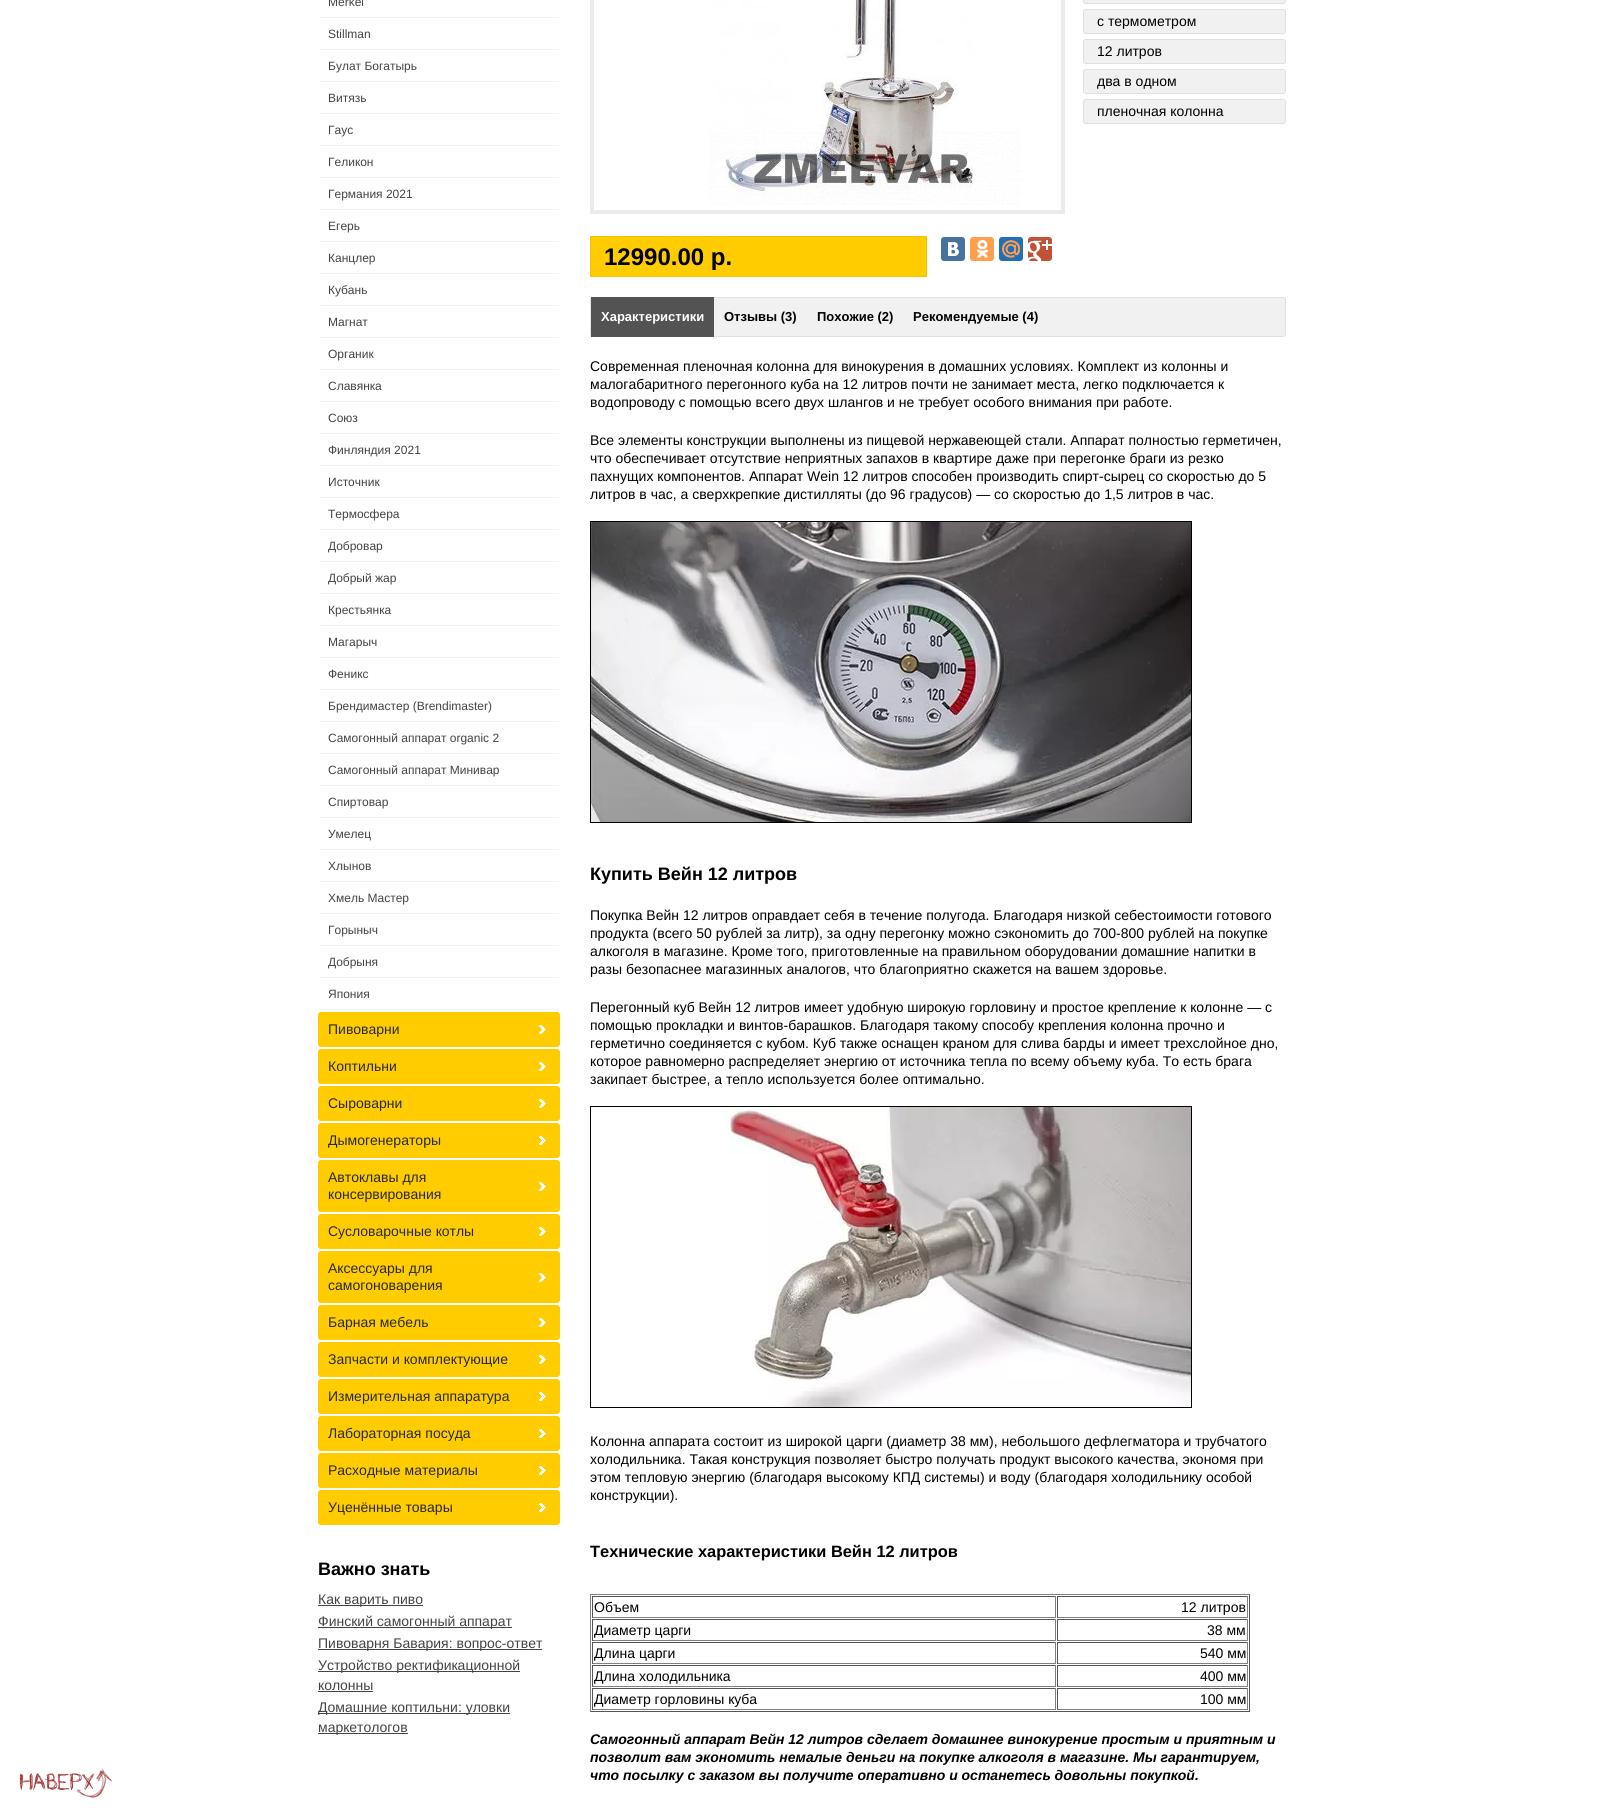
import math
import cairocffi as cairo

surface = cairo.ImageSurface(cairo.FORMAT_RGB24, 1604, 1811)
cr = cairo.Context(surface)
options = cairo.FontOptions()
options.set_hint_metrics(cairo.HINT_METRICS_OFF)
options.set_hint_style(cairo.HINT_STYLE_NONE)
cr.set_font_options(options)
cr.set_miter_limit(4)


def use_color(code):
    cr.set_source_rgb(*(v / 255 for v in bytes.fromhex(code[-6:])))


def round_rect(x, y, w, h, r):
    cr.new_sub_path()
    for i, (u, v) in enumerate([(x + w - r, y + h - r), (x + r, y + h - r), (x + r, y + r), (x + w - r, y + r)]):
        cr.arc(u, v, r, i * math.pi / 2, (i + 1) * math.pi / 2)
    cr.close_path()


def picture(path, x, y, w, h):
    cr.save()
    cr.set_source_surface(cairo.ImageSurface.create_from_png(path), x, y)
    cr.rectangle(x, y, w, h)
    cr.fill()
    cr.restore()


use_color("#ffffff")
cr.paint()
picture("img1.png", 19, 1769, 93, 29)
use_color("#f2f2f2")
cr.rectangle(320, 17, 239, 1)
cr.fill()
cr.select_font_face("Liberation Sans")
cr.set_font_size(12)
use_color("#444444")
cr.move_to(328, 6)
cr.show_text("Merkel")
use_color("#f2f2f2")
cr.rectangle(320, 49, 239, 1)
cr.fill()
use_color("#444444")
cr.move_to(328, 38)
cr.show_text("Stillman")
use_color("#f2f2f2")
cr.rectangle(320, 81, 239, 1)
cr.fill()
use_color("#444444")
cr.move_to(328, 70)
cr.show_text("Булат Богатырь")
use_color("#f2f2f2")
cr.rectangle(320, 113, 239, 1)
cr.fill()
use_color("#444444")
cr.move_to(328, 102)
cr.show_text("Витязь")
use_color("#f2f2f2")
cr.rectangle(320, 145, 239, 1)
cr.fill()
use_color("#444444")
cr.move_to(328, 134)
cr.show_text("Гаус")
use_color("#f2f2f2")
cr.rectangle(320, 177, 239, 1)
cr.fill()
use_color("#444444")
cr.move_to(328, 166)
cr.show_text("Геликон")
use_color("#f2f2f2")
cr.rectangle(320, 209, 239, 1)
cr.fill()
use_color("#444444")
cr.move_to(328, 198)
cr.show_text("Германия 2021")
use_color("#f2f2f2")
cr.rectangle(320, 241, 239, 1)
cr.fill()
use_color("#444444")
cr.move_to(328, 230)
cr.show_text("Егерь")
use_color("#f2f2f2")
cr.rectangle(320, 273, 239, 1)
cr.fill()
use_color("#444444")
cr.move_to(328, 262)
cr.show_text("Канцлер")
use_color("#f2f2f2")
cr.rectangle(320, 305, 239, 1)
cr.fill()
use_color("#444444")
cr.move_to(328, 294)
cr.show_text("Кубань")
use_color("#f2f2f2")
cr.rectangle(320, 337, 239, 1)
cr.fill()
use_color("#444444")
cr.move_to(328, 326)
cr.show_text("Магнат")
use_color("#f2f2f2")
cr.rectangle(320, 369, 239, 1)
cr.fill()
use_color("#444444")
cr.move_to(328, 358)
cr.show_text("Органик")
use_color("#f2f2f2")
cr.rectangle(320, 401, 239, 1)
cr.fill()
use_color("#444444")
cr.move_to(328, 390)
cr.show_text("Славянка")
use_color("#f2f2f2")
cr.rectangle(320, 433, 239, 1)
cr.fill()
use_color("#444444")
cr.move_to(328, 422)
cr.show_text("Союз")
use_color("#f2f2f2")
cr.rectangle(320, 465, 239, 1)
cr.fill()
use_color("#444444")
cr.move_to(328, 454)
cr.show_text("Финляндия 2021")
use_color("#f2f2f2")
cr.rectangle(320, 497, 239, 1)
cr.fill()
use_color("#444444")
cr.move_to(328, 486)
cr.show_text("Источник")
use_color("#f2f2f2")
cr.rectangle(320, 529, 239, 1)
cr.fill()
use_color("#444444")
cr.move_to(328, 518)
cr.show_text("Термосфера")
use_color("#f2f2f2")
cr.rectangle(320, 561, 239, 1)
cr.fill()
use_color("#444444")
cr.move_to(328, 550)
cr.show_text("Добровар")
use_color("#f2f2f2")
cr.rectangle(320, 593, 239, 1)
cr.fill()
use_color("#444444")
cr.move_to(328, 582)
cr.show_text("Добрый жар")
use_color("#f2f2f2")
cr.rectangle(320, 625, 239, 1)
cr.fill()
use_color("#444444")
cr.move_to(328, 614)
cr.show_text("Крестьянка")
use_color("#f2f2f2")
cr.rectangle(320, 657, 239, 1)
cr.fill()
use_color("#444444")
cr.move_to(328, 646)
cr.show_text("Магарыч")
use_color("#f2f2f2")
cr.rectangle(320, 689, 239, 1)
cr.fill()
use_color("#444444")
cr.move_to(328, 678)
cr.show_text("Феникс")
use_color("#f2f2f2")
cr.rectangle(320, 721, 239, 1)
cr.fill()
use_color("#444444")
cr.move_to(328, 710)
cr.show_text("Брендимастер (Brendimaster)")
use_color("#f2f2f2")
cr.rectangle(320, 753, 239, 1)
cr.fill()
use_color("#444444")
cr.move_to(328, 742)
cr.show_text("Самогонный аппарат organic 2")
use_color("#f2f2f2")
cr.rectangle(320, 785, 239, 1)
cr.fill()
use_color("#444444")
cr.move_to(328, 774)
cr.show_text("Самогонный аппарат Минивар")
use_color("#f2f2f2")
cr.rectangle(320, 817, 239, 1)
cr.fill()
use_color("#444444")
cr.move_to(328, 806)
cr.show_text("Спиртовар")
use_color("#f2f2f2")
cr.rectangle(320, 849, 239, 1)
cr.fill()
use_color("#444444")
cr.move_to(328, 838)
cr.show_text("Умелец")
use_color("#f2f2f2")
cr.rectangle(320, 881, 239, 1)
cr.fill()
use_color("#444444")
cr.move_to(328, 870)
cr.show_text("Хлынов")
use_color("#f2f2f2")
cr.rectangle(320, 913, 239, 1)
cr.fill()
use_color("#444444")
cr.move_to(328, 902)
cr.show_text("Хмель Мастер")
use_color("#f2f2f2")
cr.rectangle(320, 945, 239, 1)
cr.fill()
use_color("#444444")
cr.move_to(328, 934)
cr.show_text("Горыныч")
use_color("#f2f2f2")
cr.rectangle(320, 977, 239, 1)
cr.fill()
use_color("#444444")
cr.move_to(328, 966)
cr.show_text("Добрыня")
use_color("#f2f2f2")
cr.rectangle(320, 1009, 239, 1)
cr.fill()
use_color("#444444")
cr.move_to(328, 998)
cr.show_text("Япония")
use_color("#ffcc00")
round_rect(318, 1012, 242, 35, 3)
cr.fill()
picture("img2.png", 539, 1025, 7, 9)
cr.set_font_size(14)
use_color("#292929")
cr.move_to(328, 1034)
cr.show_text("Пивоварни")
use_color("#ffcc00")
round_rect(318, 1049, 242, 35, 3)
cr.fill()
picture("img2.png", 539, 1062, 7, 9)
use_color("#292929")
cr.move_to(328, 1071)
cr.show_text("Коптильни")
use_color("#ffcc00")
round_rect(318, 1086, 242, 35, 3)
cr.fill()
picture("img2.png", 539, 1099, 7, 9)
use_color("#292929")
cr.move_to(328, 1108)
cr.show_text("Сыроварни")
use_color("#ffcc00")
round_rect(318, 1123, 242, 35, 3)
cr.fill()
picture("img2.png", 539, 1136, 7, 9)
use_color("#292929")
cr.move_to(328, 1145)
cr.show_text("Дымогенераторы")
use_color("#ffcc00")
round_rect(318, 1160, 242, 52, 3)
cr.fill()
picture("img2.png", 539, 1182, 7, 9)
use_color("#292929")
cr.move_to(328, 1182)
cr.show_text("Автоклавы для")
cr.move_to(328, 1199)
cr.show_text("консервирования")
use_color("#ffcc00")
round_rect(318, 1214, 242, 35, 3)
cr.fill()
picture("img2.png", 539, 1227, 7, 9)
use_color("#292929")
cr.move_to(328, 1236)
cr.show_text("Сусловарочные котлы")
use_color("#ffcc00")
round_rect(318, 1251, 242, 52, 3)
cr.fill()
picture("img2.png", 539, 1273, 7, 9)
use_color("#292929")
cr.move_to(328, 1273)
cr.show_text("Аксессуары для")
cr.move_to(328, 1290)
cr.show_text("самогоноварения")
use_color("#ffcc00")
round_rect(318, 1305, 242, 35, 3)
cr.fill()
picture("img2.png", 539, 1318, 7, 9)
use_color("#292929")
cr.move_to(328, 1327)
cr.show_text("Барная мебель")
use_color("#ffcc00")
round_rect(318, 1342, 242, 35, 3)
cr.fill()
picture("img2.png", 539, 1355, 7, 9)
use_color("#292929")
cr.move_to(328, 1364)
cr.show_text("Запчасти и комплектующие")
use_color("#ffcc00")
round_rect(318, 1379, 242, 35, 3)
cr.fill()
picture("img2.png", 539, 1392, 7, 9)
use_color("#292929")
cr.move_to(328, 1401)
cr.show_text("Измерительная аппаратура")
use_color("#ffcc00")
round_rect(318, 1416, 242, 35, 3)
cr.fill()
picture("img2.png", 539, 1429, 7, 9)
use_color("#292929")
cr.move_to(328, 1438)
cr.show_text("Лабораторная посуда")
use_color("#ffcc00")
round_rect(318, 1453, 242, 35, 3)
cr.fill()
picture("img2.png", 539, 1466, 7, 9)
use_color("#292929")
cr.move_to(328, 1475)
cr.show_text("Расходные материалы")
use_color("#ffcc00")
round_rect(318, 1490, 242, 35, 3)
cr.fill()
picture("img2.png", 539, 1503, 7, 9)
use_color("#292929")
cr.move_to(328, 1512)
cr.show_text("Уценённые товары")
cr.select_font_face("Liberation Sans", cairo.FONT_SLANT_NORMAL, cairo.FONT_WEIGHT_BOLD)
cr.set_font_size(18)
use_color("#000000")
cr.move_to(318, 1575)
cr.show_text("Важно знать")
use_color("#444444")
cr.rectangle(318, 1605, 105, 1)
cr.fill()
cr.select_font_face("Liberation Sans")
cr.set_font_size(14)
cr.move_to(318, 1604)
cr.show_text("Как варить пиво")
cr.rectangle(318, 1627, 194, 1)
cr.fill()
cr.move_to(318, 1626)
cr.show_text("Финский самогонный аппарат")
cr.rectangle(318, 1649, 224, 1)
cr.fill()
cr.move_to(318, 1648)
cr.show_text("Пивоварня Бавария: вопрос-ответ")
cr.rectangle(318, 1671, 202, 1)
cr.fill()
cr.move_to(318, 1670)
cr.show_text("Устройство ректификационной")
cr.move_to(318, 1690)
cr.show_text("колонны")
cr.rectangle(318, 1691, 55, 1)
cr.fill()
cr.rectangle(318, 1713, 192, 1)
cr.fill()
cr.move_to(318, 1712)
cr.show_text("Домашние коптильни: уловки")
cr.rectangle(318, 1733, 90, 1)
cr.fill()
cr.move_to(318, 1732)
cr.show_text("маркетологов")
cr.rectangle(592, -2, 471, 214)
use_color("#ebebeb")
cr.set_line_width(4)
cr.stroke()
picture("img3.png", 709, 0, 312, 205)
use_color("#f1f1f1")
round_rect(1083.5, -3.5, 202, 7, 2.5)
cr.fill_preserve()
use_color("#e0e0e0")
cr.set_line_width(1)
cr.stroke()
use_color("#f1f1f1")
round_rect(1083.5, 9.5, 202, 24, 2.5)
cr.fill_preserve()
use_color("#e0e0e0")
cr.stroke()
use_color("#000000")
cr.move_to(1097, 26)
cr.show_text("с термометром")
use_color("#f1f1f1")
round_rect(1083.5, 39.5, 202, 24, 2.5)
cr.fill_preserve()
use_color("#e0e0e0")
cr.stroke()
use_color("#000000")
cr.move_to(1097, 56)
cr.show_text("12 литров")
use_color("#f1f1f1")
round_rect(1083.5, 69.5, 202, 24, 2.5)
cr.fill_preserve()
use_color("#e0e0e0")
cr.stroke()
use_color("#000000")
cr.move_to(1097, 86)
cr.show_text("два в одном")
use_color("#f1f1f1")
round_rect(1083.5, 99.5, 202, 24, 2.5)
cr.fill_preserve()
use_color("#e0e0e0")
cr.stroke()
use_color("#000000")
cr.move_to(1097, 116)
cr.show_text("пленочная колонна")
use_color("#ffcc00")
cr.rectangle(590.5, 236.5, 336, 40)
cr.fill_preserve()
use_color("#f2c200")
cr.stroke()
cr.select_font_face("Liberation Sans", cairo.FONT_SLANT_NORMAL, cairo.FONT_WEIGHT_BOLD)
cr.set_font_size(24)
use_color("#000000")
cr.move_to(604, 265)
cr.show_text("12990.00 р.")
use_color("#48729e")
round_rect(941, 237, 24, 24, 3)
cr.fill()
picture("img4.png", 948, 242, 11, 14)
use_color("#ff9f4d")
round_rect(970, 237, 24, 24, 3)
cr.fill()
picture("img5.png", 977, 240, 11, 18)
use_color("#226eb7")
round_rect(999, 237, 24, 24, 3)
cr.fill()
picture("img6.png", 1002, 240, 18, 18)
use_color("#c25234")
round_rect(1028, 237, 24, 24, 3)
cr.fill()
picture("img7.png", 1028, 240, 24, 21)
use_color("#f1f1f1")
round_rect(590.5, 297.5, 695, 39, 2.5)
cr.fill_preserve()
use_color("#e0e0e0")
cr.stroke()
use_color("#535353")
cr.rectangle(591, 297, 123, 40)
cr.fill()
cr.set_font_size(13)
use_color("#ffffff")
cr.move_to(601, 321)
cr.show_text("Характеристики")
use_color("#000000")
cr.move_to(724, 321)
cr.show_text("Отзывы (3)")
cr.move_to(817, 321)
cr.show_text("Похожие (2)")
cr.move_to(913, 321)
cr.show_text("Рекомендуемые (4)")
cr.select_font_face("Liberation Sans")
cr.set_font_size(14)
cr.move_to(590, 371)
cr.show_text("Современная пленочная колонна для винокурения в домашних условиях. Комплект из колонны и")
cr.move_to(590, 389)
cr.show_text("малогабаритного перегонного куба на 12 литров почти не занимает места, легко подключается к")
cr.move_to(590, 407)
cr.show_text("водопроводу с помощью всего двух шлангов и не требует особого внимания при работе.")
cr.move_to(590, 445)
cr.show_text("Все элементы конструкции выполнены из пищевой нержавеющей стали. Аппарат полностью герметичен,")
cr.move_to(590, 463)
cr.show_text("что обеспечивает отсутствие неприятных запахов в квартире даже при перегонке браги из резко")
cr.move_to(590, 481)
cr.show_text("пахнущих компонентов. Аппарат Wein 12 литров способен производить спирт-сырец со скоростью до 5")
cr.move_to(590, 499)
cr.show_text("литров в час, а сверхкрепкие дистилляты (до 96 градусов) — со скоростью до 1,5 литров в час.")
cr.rectangle(590.5, 521.5, 601, 301)
cr.stroke()
picture("img8.png", 591, 522, 600, 300)
cr.select_font_face("Liberation Sans", cairo.FONT_SLANT_NORMAL, cairo.FONT_WEIGHT_BOLD)
cr.set_font_size(18)
cr.move_to(590, 880)
cr.show_text("Купить Вейн 12 литров")
cr.select_font_face("Liberation Sans")
cr.set_font_size(14)
cr.move_to(590, 920)
cr.show_text("Покупка Вейн 12 литров оправдает себя в течение полугода. Благодаря низкой себестоимости готового")
cr.move_to(590, 938)
cr.show_text("продукта (всего 50 рублей за литр), за одну перегонку можно сэкономить до 700-800 рублей на покупке")
cr.move_to(590, 956)
cr.show_text("алкоголя в магазине. Кроме того, приготовленные на правильном оборудовании домашние напитки в")
cr.move_to(590, 974)
cr.show_text("разы безопаснее магазинных аналогов, что благоприятно скажется на вашем здоровье.")
cr.move_to(590, 1012)
cr.show_text("Перегонный куб Вейн 12 литров имеет удобную широкую горловину и простое крепление к колонне — с")
cr.move_to(590, 1030)
cr.show_text("помощью прокладки и винтов-барашков. Благодаря такому способу крепления колонна прочно и")
cr.move_to(590, 1048)
cr.show_text("герметично соединяется с кубом. Куб также оснащен краном для слива барды и имеет трехслойное дно,")
cr.move_to(590, 1066)
cr.show_text("которое равномерно распределяет энергию от источника тепла по всему объему куба. То есть брага")
cr.move_to(590, 1084)
cr.show_text("закипает быстрее, а тепло используется более оптимально.")
cr.rectangle(590.5, 1106.5, 601, 301)
cr.stroke()
picture("img9.png", 727, 1107, 464, 300)
cr.move_to(590, 1446)
cr.show_text("Колонна аппарата состоит из широкой царги (диаметр 38 мм), небольшого дефлегматора и трубчатого")
cr.move_to(590, 1464)
cr.show_text("холодильника. Такая конструкция позволяет быстро получать продукт высокого качества, экономя при")
cr.move_to(590, 1482)
cr.show_text("этом тепловую энергию (благодаря высокому КПД системы) и воду (благодаря холодильнику особой")
cr.move_to(590, 1500)
cr.show_text("конструкции).")
cr.select_font_face("Liberation Sans", cairo.FONT_SLANT_NORMAL, cairo.FONT_WEIGHT_BOLD)
cr.set_font_size(16.4)
cr.move_to(590, 1557)
cr.show_text("Технические характеристики Вейн 12 литров")
use_color("#808080")
cr.rectangle(590, 1594, 660, 1)
cr.fill()
use_color("#555555")
cr.rectangle(1249, 1594, 1, 118)
cr.fill()
cr.rectangle(590, 1711, 660, 1)
cr.fill()
use_color("#808080")
cr.rectangle(590, 1594, 1, 118)
cr.fill()
use_color("#555555")
cr.rectangle(592, 1596, 464, 1)
cr.fill()
use_color("#808080")
cr.rectangle(1055, 1596, 1, 22)
cr.fill()
cr.rectangle(592, 1617, 464, 1)
cr.fill()
use_color("#555555")
cr.rectangle(592, 1596, 1, 22)
cr.fill()
cr.select_font_face("Liberation Sans")
cr.set_font_size(14)
use_color("#000000")
cr.move_to(594, 1612)
cr.show_text("Объем")
use_color("#555555")
cr.rectangle(1057, 1596, 191, 1)
cr.fill()
use_color("#808080")
cr.rectangle(1247, 1596, 1, 22)
cr.fill()
cr.rectangle(1057, 1617, 191, 1)
cr.fill()
use_color("#555555")
cr.rectangle(1057, 1596, 1, 22)
cr.fill()
use_color("#000000")
cr.move_to(1181, 1612)
cr.show_text("12 литров")
use_color("#555555")
cr.rectangle(592, 1619, 464, 1)
cr.fill()
use_color("#808080")
cr.rectangle(1055, 1619, 1, 22)
cr.fill()
cr.rectangle(592, 1640, 464, 1)
cr.fill()
use_color("#555555")
cr.rectangle(592, 1619, 1, 22)
cr.fill()
use_color("#000000")
cr.move_to(594, 1635)
cr.show_text("Диаметр царги")
use_color("#555555")
cr.rectangle(1057, 1619, 191, 1)
cr.fill()
use_color("#808080")
cr.rectangle(1247, 1619, 1, 22)
cr.fill()
cr.rectangle(1057, 1640, 191, 1)
cr.fill()
use_color("#555555")
cr.rectangle(1057, 1619, 1, 22)
cr.fill()
use_color("#000000")
cr.move_to(1207, 1635)
cr.show_text("38 мм")
use_color("#555555")
cr.rectangle(592, 1642, 464, 1)
cr.fill()
use_color("#808080")
cr.rectangle(1055, 1642, 1, 22)
cr.fill()
cr.rectangle(592, 1663, 464, 1)
cr.fill()
use_color("#555555")
cr.rectangle(592, 1642, 1, 22)
cr.fill()
use_color("#000000")
cr.move_to(594, 1658)
cr.show_text("Длина царги")
use_color("#555555")
cr.rectangle(1057, 1642, 191, 1)
cr.fill()
use_color("#808080")
cr.rectangle(1247, 1642, 1, 22)
cr.fill()
cr.rectangle(1057, 1663, 191, 1)
cr.fill()
use_color("#555555")
cr.rectangle(1057, 1642, 1, 22)
cr.fill()
use_color("#000000")
cr.move_to(1200, 1658)
cr.show_text("540 мм")
use_color("#555555")
cr.rectangle(592, 1665, 464, 1)
cr.fill()
use_color("#808080")
cr.rectangle(1055, 1665, 1, 22)
cr.fill()
cr.rectangle(592, 1686, 464, 1)
cr.fill()
use_color("#555555")
cr.rectangle(592, 1665, 1, 22)
cr.fill()
use_color("#000000")
cr.move_to(594, 1681)
cr.show_text("Длина холодильника")
use_color("#555555")
cr.rectangle(1057, 1665, 191, 1)
cr.fill()
use_color("#808080")
cr.rectangle(1247, 1665, 1, 22)
cr.fill()
cr.rectangle(1057, 1686, 191, 1)
cr.fill()
use_color("#555555")
cr.rectangle(1057, 1665, 1, 22)
cr.fill()
use_color("#000000")
cr.move_to(1200, 1681)
cr.show_text("400 мм")
use_color("#555555")
cr.rectangle(592, 1688, 464, 1)
cr.fill()
use_color("#808080")
cr.rectangle(1055, 1688, 1, 22)
cr.fill()
cr.rectangle(592, 1709, 464, 1)
cr.fill()
use_color("#555555")
cr.rectangle(592, 1688, 1, 22)
cr.fill()
use_color("#000000")
cr.move_to(594, 1704)
cr.show_text("Диаметр горловины куба")
use_color("#555555")
cr.rectangle(1057, 1688, 191, 1)
cr.fill()
use_color("#808080")
cr.rectangle(1247, 1688, 1, 22)
cr.fill()
cr.rectangle(1057, 1709, 191, 1)
cr.fill()
use_color("#555555")
cr.rectangle(1057, 1688, 1, 22)
cr.fill()
use_color("#000000")
cr.move_to(1200, 1704)
cr.show_text("100 мм")
cr.select_font_face("Liberation Sans", cairo.FONT_SLANT_ITALIC, cairo.FONT_WEIGHT_BOLD)
cr.move_to(590, 1744)
cr.show_text("Самогонный аппарат Вейн 12 литров сделает домашнее винокурение простым и приятным и")
cr.move_to(590, 1762)
cr.show_text("позволит вам экономить немалые деньги на покупке алкоголя в магазине. Мы гарантируем,")
cr.move_to(590, 1780)
cr.show_text("что посылку с заказом вы получите оперативно и останетесь довольны покупкой.")
surface.write_to_png("result.png")
